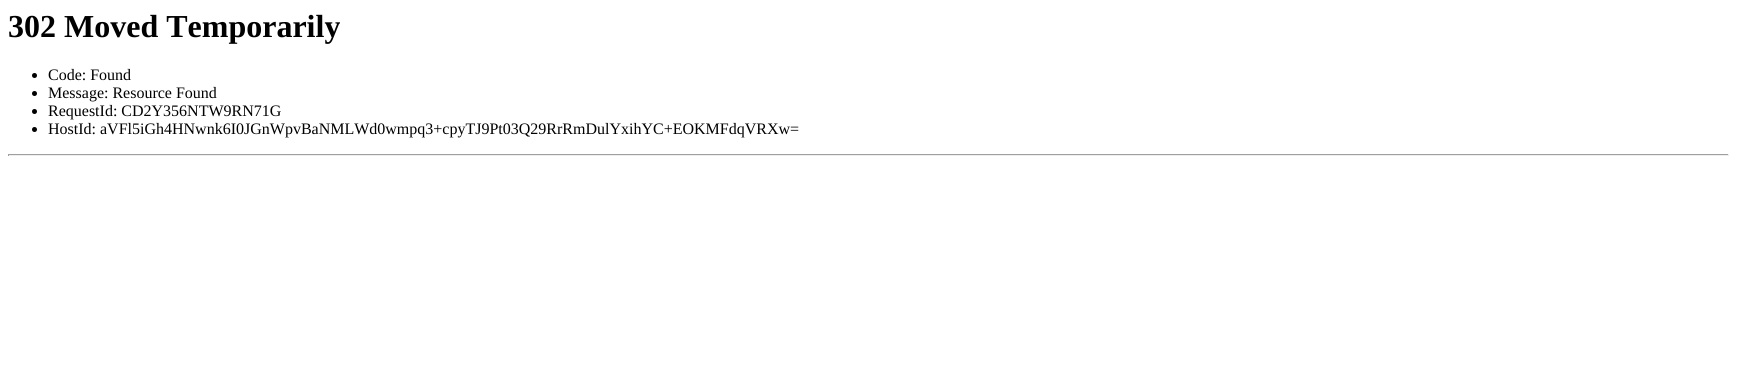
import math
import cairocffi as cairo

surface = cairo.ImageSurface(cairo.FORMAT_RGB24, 1737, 375)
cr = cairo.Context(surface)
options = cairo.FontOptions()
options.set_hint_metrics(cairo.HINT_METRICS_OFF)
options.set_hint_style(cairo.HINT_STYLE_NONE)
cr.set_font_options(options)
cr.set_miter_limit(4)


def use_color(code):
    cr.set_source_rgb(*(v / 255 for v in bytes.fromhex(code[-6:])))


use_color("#ffffff")
cr.paint()
cr.select_font_face("Liberation Serif", cairo.FONT_SLANT_NORMAL, cairo.FONT_WEIGHT_BOLD)
cr.set_font_size(32)
use_color("#000000")
cr.move_to(8, 37)
cr.show_text("302 Moved Temporarily")
cr.new_path()
cr.arc(34.5, 75.5, 2.5, 0, 2 * math.pi)
cr.fill()
cr.select_font_face("Liberation Serif")
cr.set_font_size(16)
cr.move_to(48, 80)
cr.show_text("Code: Found")
cr.new_path()
cr.arc(34.5, 93.5, 2.5, 0, 2 * math.pi)
cr.fill()
cr.move_to(48, 98)
cr.show_text("Message: Resource Found")
cr.new_path()
cr.arc(34.5, 111.5, 2.5, 0, 2 * math.pi)
cr.fill()
cr.move_to(48, 116)
cr.show_text("RequestId: CD2Y356NTW9RN71G")
cr.new_path()
cr.arc(34.5, 129.5, 2.5, 0, 2 * math.pi)
cr.fill()
cr.move_to(48, 134)
cr.show_text("HostId: aVFl5iGh4HNwnk6I0JGnWpvBaNMLWd0wmpq3+cpyTJ9Pt03Q29RrRmDulYxihYC+EOKMFdqVRXw=")
use_color("#9f9f9f")
cr.rectangle(8, 154, 1721, 1)
cr.fill()
use_color("#eeeeee")
cr.rectangle(1728, 154, 1, 2)
cr.fill()
cr.rectangle(8, 155, 1721, 1)
cr.fill()
use_color("#9f9f9f")
cr.rectangle(8, 154, 1, 2)
cr.fill()
surface.write_to_png("result.png")
